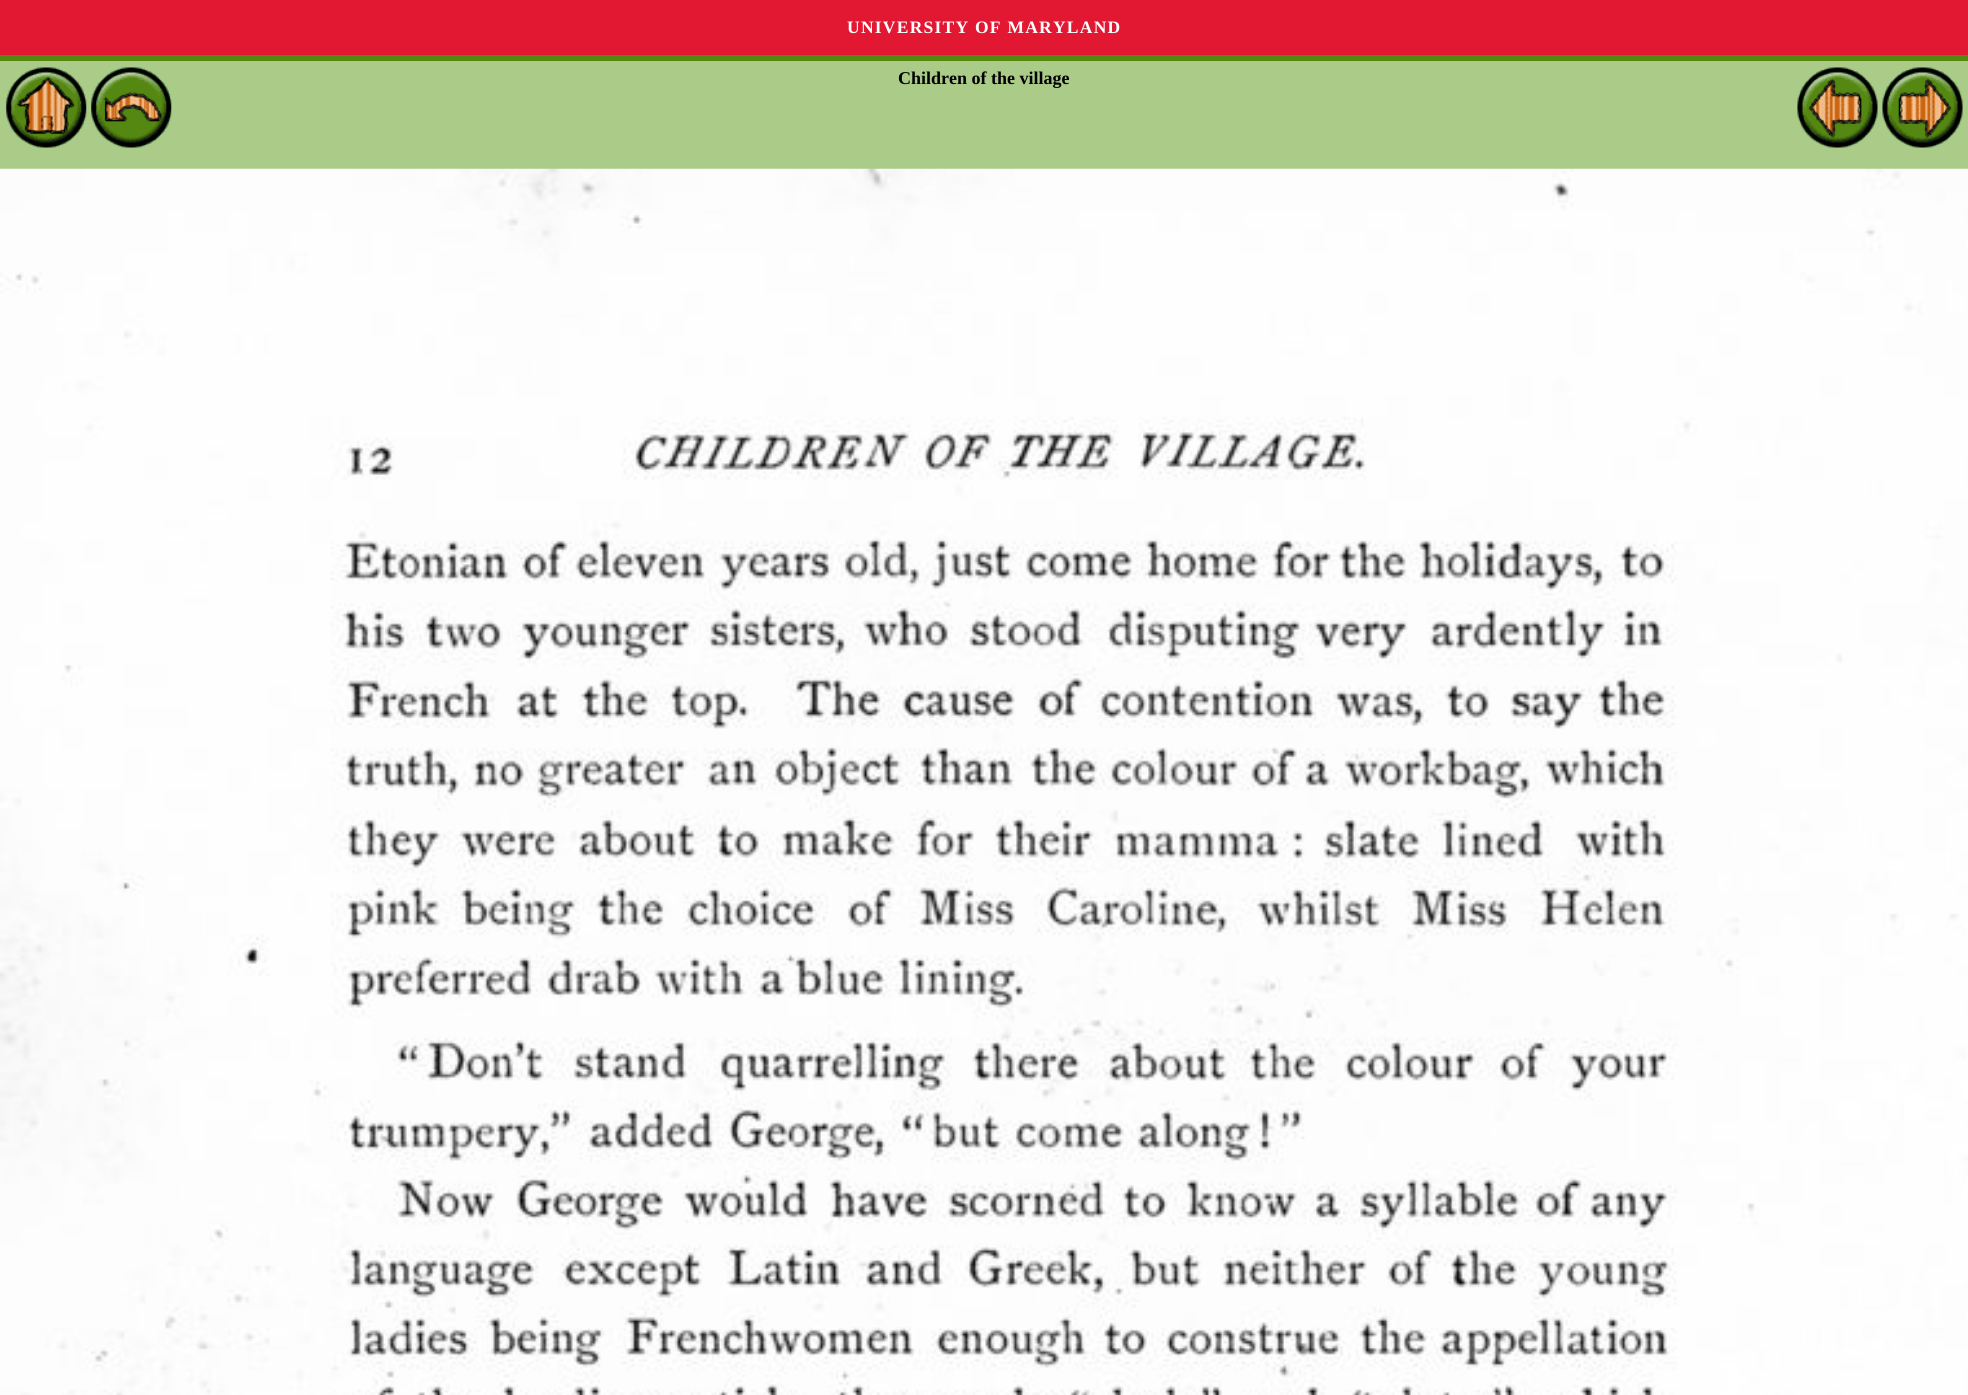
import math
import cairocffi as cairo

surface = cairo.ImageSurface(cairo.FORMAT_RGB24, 1968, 1395)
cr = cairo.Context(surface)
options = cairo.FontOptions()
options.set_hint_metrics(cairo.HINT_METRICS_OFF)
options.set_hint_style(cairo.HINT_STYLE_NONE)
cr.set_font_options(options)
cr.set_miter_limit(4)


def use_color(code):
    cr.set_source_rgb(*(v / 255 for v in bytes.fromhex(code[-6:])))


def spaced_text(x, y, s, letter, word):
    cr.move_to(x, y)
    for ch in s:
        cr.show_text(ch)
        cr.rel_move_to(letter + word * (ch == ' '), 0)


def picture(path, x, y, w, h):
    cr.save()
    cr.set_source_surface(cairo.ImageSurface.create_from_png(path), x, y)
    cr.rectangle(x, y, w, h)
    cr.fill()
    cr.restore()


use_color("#aacc88")
cr.paint()
use_color("#e21833")
cr.rectangle(0, 0, 1968, 55)
cr.fill()
cr.select_font_face("Liberation Serif", cairo.FONT_SLANT_NORMAL, cairo.FONT_WEIGHT_BOLD)
cr.set_font_size(17.5)
use_color("#ffffff")
spaced_text(847, 33, "UNIVERSITY OF MARYLAND", 1.25, 0)
use_color("#558811")
cr.rectangle(0, 55, 1968, 6)
cr.fill()
picture("img1.png", 6, 67, 81, 81)
picture("img2.png", 91, 67, 81, 81)
cr.set_font_size(18)
use_color("#000000")
cr.move_to(898, 84)
cr.show_text("Children of the village")
picture("img3.png", 1797, 67, 81, 81)
picture("img4.png", 1882, 67, 81, 81)
picture("img5.png", 0, 168, 1968, 1227)
surface.write_to_png("result.png")
